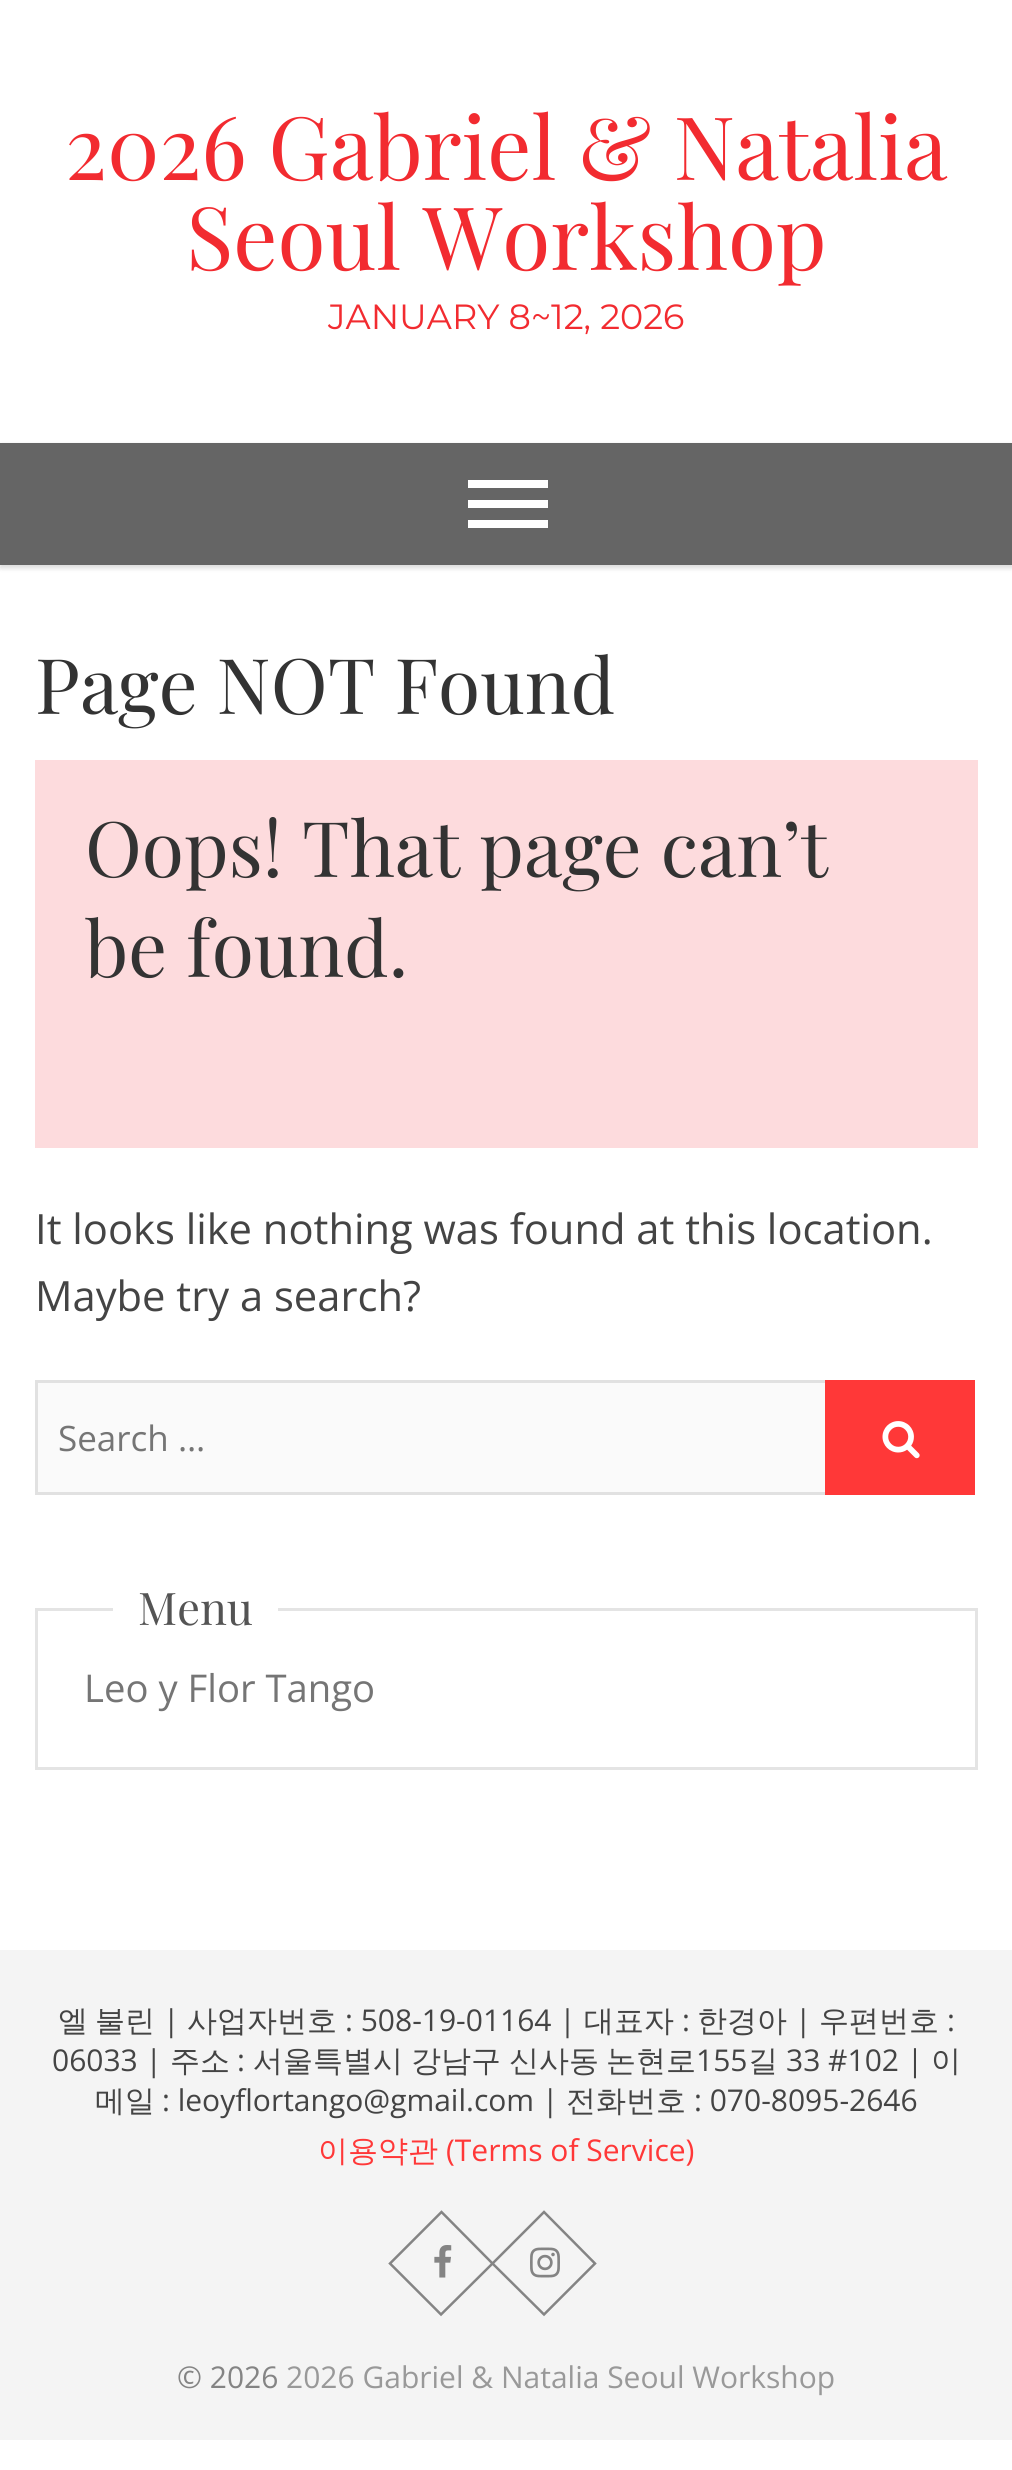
import math
import cairocffi as cairo

surface = cairo.ImageSurface(cairo.FORMAT_RGB24, 1012, 2470)
cr = cairo.Context(surface)
options = cairo.FontOptions()
options.set_hint_metrics(cairo.HINT_METRICS_OFF)
options.set_hint_style(cairo.HINT_STYLE_NONE)
cr.set_font_options(options)
cr.set_miter_limit(4)


def use_color(code):
    cr.set_source_rgb(*(v / 255 for v in bytes.fromhex(code[-6:])))


def round_rect(x, y, w, h, r):
    cr.new_sub_path()
    for i, (u, v) in enumerate([(x + w - r, y + h - r), (x + r, y + h - r), (x + r, y + r), (x + w - r, y + r)]):
        cr.arc(u, v, r, i * math.pi / 2, (i + 1) * math.pi / 2)
    cr.close_path()


def shadow(x, y, w, h, r, blur, alpha):
    cr.push_group_with_content(cairo.CONTENT_ALPHA)
    cr.set_operator(cairo.OPERATOR_SOURCE)
    for i in range(15, -16, -2):
        e = blur * i / 6
        if min(w, h) + 2 * e > 0:
            cr.set_source_rgba(0, 0, 0, alpha * math.erfc((i - 1) / 8.5) / 2)
            round_rect(x - e, y - e, w + 2 * e, h + 2 * e, max(0, min(r + e + blur * .6, min(w, h) / 2 + e)))
            cr.fill()
    cr.mask(cr.pop_group())


def picture(path, x, y, w, h):
    cr.save()
    cr.set_source_surface(cairo.ImageSurface.create_from_png(path), x, y)
    cr.rectangle(x, y, w, h)
    cr.fill()
    cr.restore()


use_color("#ffffff")
cr.paint()
cr.select_font_face("Playfair Display")
cr.set_font_size(87.5)
use_color("#f22b30")
cr.move_to(65, 180)
cr.show_text("2026 Gabriel & Natalia")
cr.move_to(186, 270)
cr.show_text("Seoul Workshop")
cr.select_font_face("Montserrat")
cr.set_font_size(35)
cr.move_to(328, 329)
cr.show_text("JANUARY 8~12, 2026")
use_color("#000000")
shadow(0, 445, 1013, 123, 0, 2.5, 0.15)
use_color("#656565")
cr.rectangle(0, 443, 1012, 122)
cr.fill()
use_color("#ffffff")
cr.rectangle(468, 480, 80, 8)
cr.fill()
cr.rectangle(468, 500, 80, 8)
cr.fill()
cr.rectangle(468, 520, 80, 8)
cr.fill()
cr.select_font_face("Playfair Display")
cr.set_font_size(76.75)
use_color("#333333")
cr.move_to(35, 714)
cr.show_text("Page NOT Found")
use_color("#fddbdd")
cr.rectangle(35, 760, 943, 388)
cr.fill()
use_color("#333333")
cr.move_to(85, 877)
cr.show_text("Oops! That page can’t")
cr.move_to(85, 977)
cr.show_text("be found.")
cr.select_font_face("Open Sans")
cr.set_font_size(41.7)
use_color("#444444")
cr.move_to(35, 1244)
cr.show_text("It looks like nothing was found at this location.")
cr.move_to(35, 1311)
cr.show_text("Maybe try a search?")
use_color("#fafafa")
cr.rectangle(36.5, 1381.5, 790, 112)
cr.fill_preserve()
use_color("#e1e1e1")
cr.set_line_width(3)
cr.stroke()
cr.set_font_size(35)
use_color("#757575")
cr.move_to(58, 1451)
cr.show_text("Search …")
use_color("#ff3838")
cr.rectangle(825, 1380, 150, 115)
cr.fill()
picture("img1.png", 882, 1421, 38, 38)
cr.rectangle(36.5, 1609.5, 940, 159)
use_color("#e4e4e4")
cr.stroke()
use_color("#ffffff")
cr.rectangle(113, 1608, 165, 3)
cr.fill()
cr.select_font_face("Playfair Display")
cr.set_font_size(45)
use_color("#545454")
cr.move_to(138, 1625)
cr.show_text("Menu")
cr.select_font_face("Open Sans")
cr.set_font_size(38.25)
use_color("#757575")
cr.move_to(84, 1702)
cr.show_text("Leo y Flor Tango")
use_color("#f4f4f4")
cr.rectangle(0, 1950, 1012, 490)
cr.fill()
cr.select_font_face("WenQuanYi Zen Hei Medium")
cr.set_font_size(30)
use_color("#444444")
cr.move_to(58, 2031)
cr.show_text("엘")
cr.move_to(95, 2031)
cr.show_text("불린")
cr.select_font_face("Open Sans")
cr.move_to(163, 2031)
cr.show_text("|")
cr.select_font_face("WenQuanYi Zen Hei Medium")
cr.move_to(187, 2031)
cr.show_text("사업자번호")
cr.select_font_face("Open Sans")
cr.move_to(345, 2031)
cr.show_text(": 508-19-01164 |")
cr.select_font_face("WenQuanYi Zen Hei Medium")
cr.move_to(584, 2031)
cr.show_text("대표자")
cr.select_font_face("Open Sans")
cr.move_to(682, 2031)
cr.show_text(":")
cr.select_font_face("WenQuanYi Zen Hei Medium")
cr.move_to(697, 2031)
cr.show_text("한경아")
cr.select_font_face("Open Sans")
cr.move_to(795, 2031)
cr.show_text("|")
cr.select_font_face("WenQuanYi Zen Hei Medium")
cr.move_to(819, 2031)
cr.show_text("우편번호")
cr.select_font_face("Open Sans")
cr.move_to(947, 2031)
cr.show_text(":")
cr.move_to(52, 2071)
cr.show_text("06033 |")
cr.select_font_face("WenQuanYi Zen Hei Medium")
cr.move_to(170, 2071)
cr.show_text("주소")
cr.select_font_face("Open Sans")
cr.move_to(237, 2071)
cr.show_text(":")
cr.select_font_face("WenQuanYi Zen Hei Medium")
cr.move_to(253, 2071)
cr.show_text("서울특별시")
cr.move_to(411, 2071)
cr.show_text("강남구")
cr.move_to(509, 2071)
cr.show_text("신사동")
cr.move_to(606, 2071)
cr.show_text("논현로")
cr.select_font_face("Open Sans")
cr.move_to(696, 2071)
cr.show_text("155")
cr.select_font_face("WenQuanYi Zen Hei Medium")
cr.move_to(748, 2071)
cr.show_text("길")
cr.select_font_face("Open Sans")
cr.move_to(786, 2071)
cr.show_text("33 #102 |")
cr.select_font_face("WenQuanYi Zen Hei Medium")
cr.move_to(931, 2071)
cr.show_text("이")
cr.move_to(95, 2111)
cr.show_text("메일")
cr.select_font_face("Open Sans")
cr.move_to(162, 2111)
cr.show_text(": leoyflortango@gmail.com |")
cr.select_font_face("WenQuanYi Zen Hei Medium")
cr.move_to(566, 2111)
cr.show_text("전화번호")
cr.select_font_face("Open Sans")
cr.move_to(694, 2111)
cr.show_text(": 070-8095-2646")
cr.select_font_face("WenQuanYi Zen Hei Medium")
use_color("#ff3838")
cr.move_to(318, 2161)
cr.show_text("이용약관")
cr.select_font_face("Open Sans")
cr.move_to(446, 2161)
cr.show_text("(Terms of Service)")
cr.new_path()
cr.move_to(390, 2263.5)
cr.line_to(441.5, 2212)
cr.line_to(492.5, 2263.5)
cr.line_to(441, 2314.5)
cr.close_path()
use_color("#848484")
cr.set_line_width(2.5)
cr.stroke()
picture("img2.png", 434, 2245, 18, 33)
cr.new_path()
cr.move_to(492.5, 2263.5)
cr.line_to(544, 2212)
cr.line_to(595, 2263.5)
cr.line_to(544, 2314.5)
cr.close_path()
cr.stroke()
picture("img3.png", 530, 2247, 30, 31)
cr.move_to(177, 2388)
cr.show_text("© 2026")
use_color("#999999")
cr.move_to(286, 2388)
cr.show_text("2026 Gabriel & Natalia Seoul Workshop")
surface.write_to_png("result.png")
